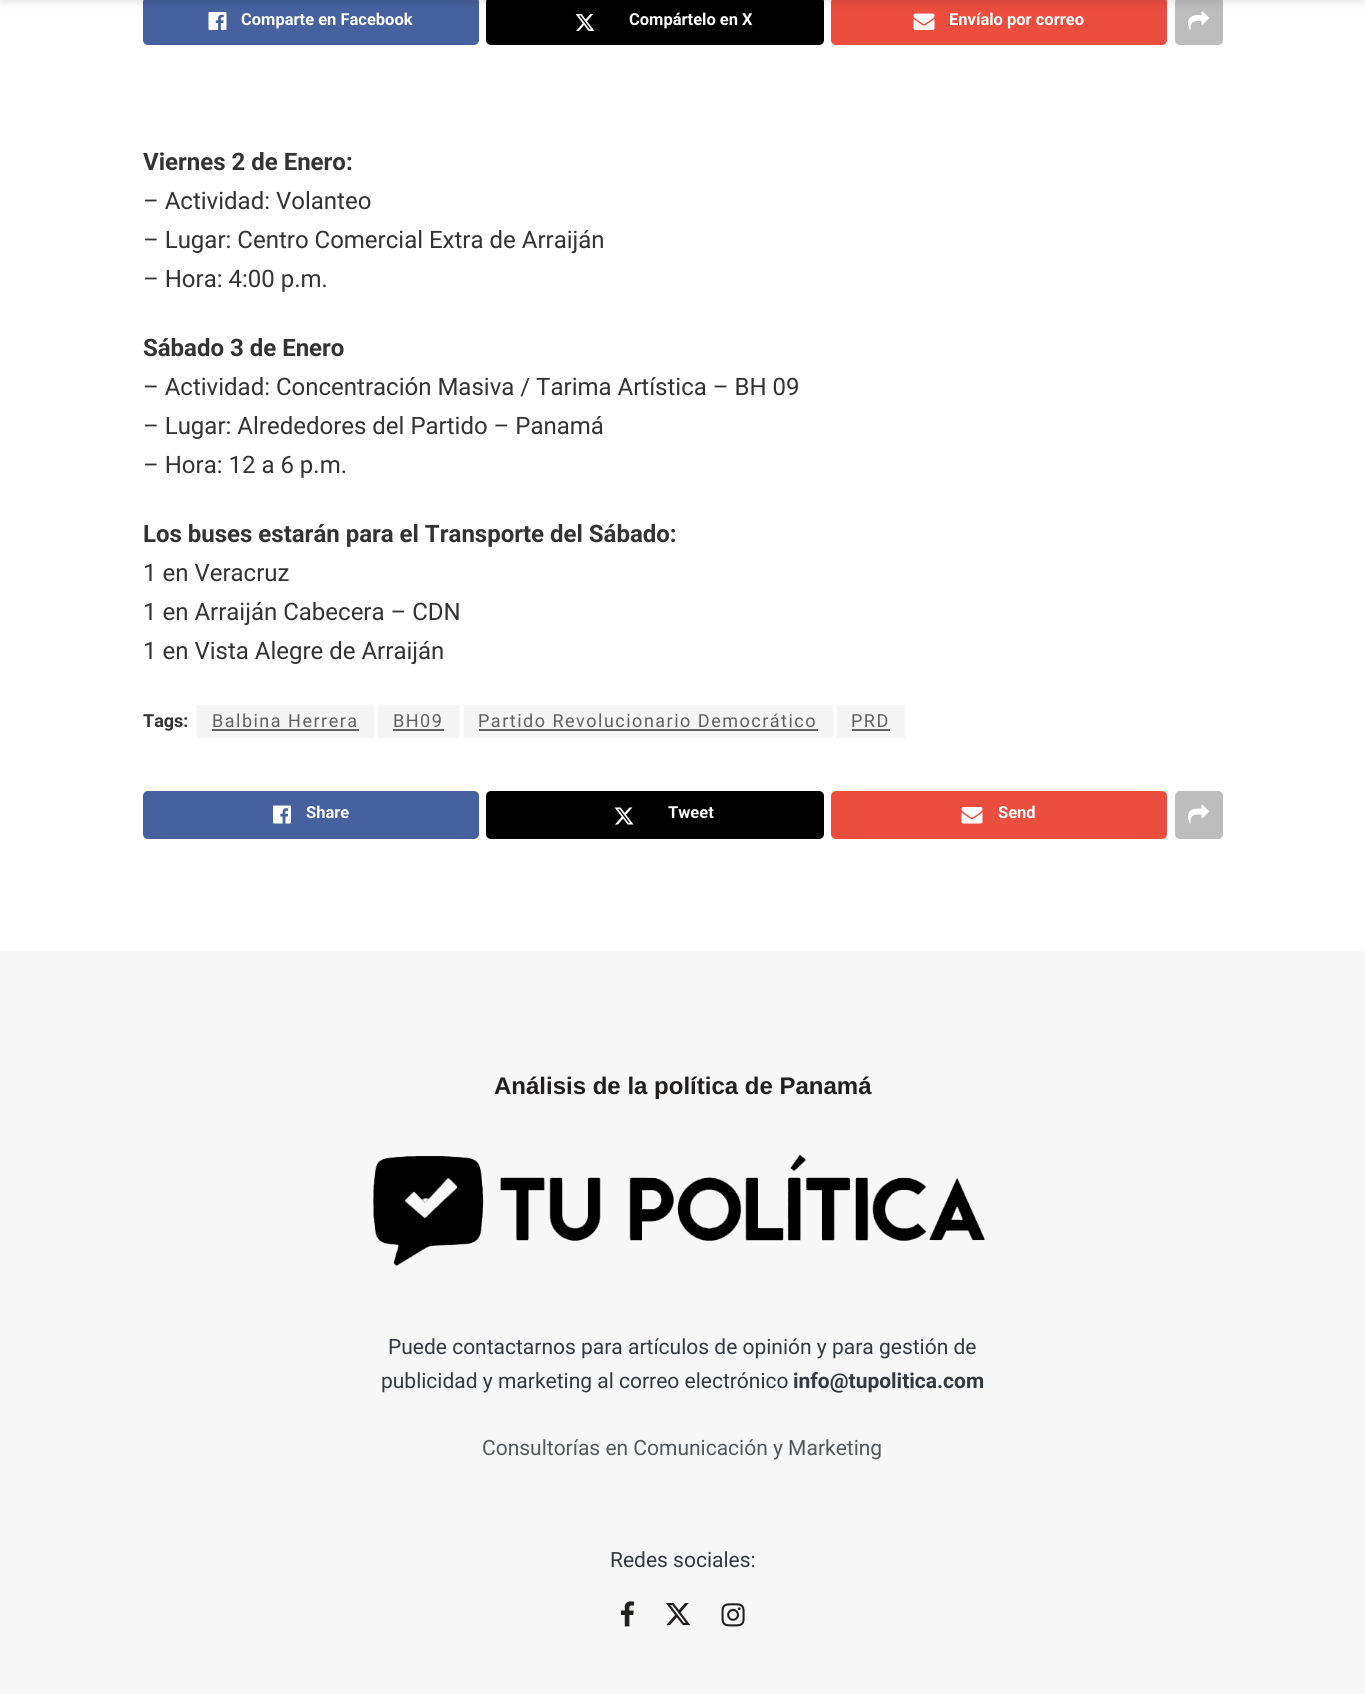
import math
import cairocffi as cairo

surface = cairo.ImageSurface(cairo.FORMAT_RGB24, 1365, 1694)
cr = cairo.Context(surface)
options = cairo.FontOptions()
options.set_hint_metrics(cairo.HINT_METRICS_OFF)
options.set_hint_style(cairo.HINT_STYLE_NONE)
cr.set_font_options(options)
cr.set_miter_limit(4)


def use_color(code):
    cr.set_source_rgb(*(v / 255 for v in bytes.fromhex(code[-6:])))


def spaced_text(x, y, s, letter, word):
    cr.move_to(x, y)
    for ch in s:
        cr.show_text(ch)
        cr.rel_move_to(letter + word * (ch == ' '), 0)


def round_rect(x, y, w, h, r):
    cr.new_sub_path()
    for i, (u, v) in enumerate([(x + w - r, y + h - r), (x + r, y + h - r), (x + r, y + r), (x + w - r, y + r)]):
        cr.arc(u, v, r, i * math.pi / 2, (i + 1) * math.pi / 2)
    cr.close_path()


def shadow(x, y, w, h, r, blur, alpha):
    cr.push_group_with_content(cairo.CONTENT_ALPHA)
    cr.set_operator(cairo.OPERATOR_SOURCE)
    for i in range(15, -16, -2):
        e = blur * i / 6
        if min(w, h) + 2 * e > 0:
            cr.set_source_rgba(0, 0, 0, alpha * math.erfc((i - 1) / 8.5) / 2)
            round_rect(x - e, y - e, w + 2 * e, h + 2 * e, max(0, min(r + e + blur * .6, min(w, h) / 2 + e)))
            cr.fill()
    cr.mask(cr.pop_group())


def picture(path, x, y, w, h):
    cr.save()
    cr.set_source_surface(cairo.ImageSurface.create_from_png(path), x, y)
    cr.rectangle(x, y, w, h)
    cr.fill()
    cr.restore()


use_color("#ffffff")
cr.paint()
use_color("#45629f")
round_rect(143, -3, 336, 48, 5)
cr.fill()
picture("img1.png", 208, 12, 19, 18)
use_color("#000000")
round_rect(486, -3, 338, 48, 5)
cr.fill()
picture("img2.png", 575, 14, 20, 17)
use_color("#eb4d3f")
round_rect(831, -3, 336, 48, 5)
cr.fill()
picture("img3.png", 913, 13, 22, 17)
use_color("#bdbdbd")
round_rect(1175, -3, 48, 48, 5)
cr.fill()
picture("img4.png", 1188, 11, 21, 19)
use_color("#000000")
shadow(0, -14, 1365, 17, 0, 4.5, 0.1)
cr.select_font_face("Roboto", cairo.FONT_SLANT_NORMAL, cairo.FONT_WEIGHT_BOLD)
cr.set_font_size(16.5)
use_color("#ffffff")
cr.move_to(241, 25)
cr.show_text("Comparte en Facebook")
cr.move_to(629, 25)
cr.show_text("Compártelo en X")
cr.move_to(949, 25)
cr.show_text("Envíalo por correo")
cr.set_font_size(24)
use_color("#333333")
cr.move_to(143, 170)
cr.show_text("Viernes 2 de Enero:")
cr.select_font_face("Roboto")
cr.move_to(143, 209)
cr.show_text("– Actividad: Volanteo")
cr.move_to(143, 248)
cr.show_text("– Lugar: Centro Comercial Extra de Arraiján")
cr.move_to(143, 287)
cr.show_text("– Hora: 4:00 p.m.")
cr.select_font_face("Roboto", cairo.FONT_SLANT_NORMAL, cairo.FONT_WEIGHT_BOLD)
cr.move_to(143, 356)
cr.show_text("Sábado 3 de Enero")
cr.select_font_face("Roboto")
cr.move_to(143, 395)
cr.show_text("– Actividad: Concentración Masiva / Tarima Artística – BH 09")
cr.move_to(143, 434)
cr.show_text("– Lugar: Alrededores del Partido – Panamá")
cr.move_to(143, 473)
cr.show_text("– Hora: 12 a 6 p.m.")
cr.select_font_face("Roboto", cairo.FONT_SLANT_NORMAL, cairo.FONT_WEIGHT_BOLD)
cr.move_to(143, 542)
cr.show_text("Los buses estarán para el Transporte del Sábado:")
cr.select_font_face("Roboto")
cr.move_to(143, 581)
cr.show_text("1 en Veracruz")
cr.move_to(143, 620)
cr.show_text("1 en Arraiján Cabecera – CDN")
cr.move_to(143, 659)
cr.show_text("1 en Vista Alegre de Arraiján")
cr.select_font_face("Roboto", cairo.FONT_SLANT_NORMAL, cairo.FONT_WEIGHT_BOLD)
cr.set_font_size(18)
cr.move_to(143, 727)
cr.show_text("Tags:")
use_color("#f5f5f5")
cr.rectangle(197, 705, 177, 33)
cr.fill()
cr.select_font_face("Roboto")
use_color("#616161")
spaced_text(212, 727, "Balbina Herrera", 1.5, 0)
cr.rectangle(212, 729, 147, 2)
cr.fill()
use_color("#f5f5f5")
cr.rectangle(378, 705, 81, 33)
cr.fill()
use_color("#616161")
spaced_text(393, 727, "BH09", 1.5, 0)
cr.rectangle(393, 729, 51, 2)
cr.fill()
use_color("#f5f5f5")
cr.rectangle(464, 705, 369, 33)
cr.fill()
use_color("#616161")
spaced_text(478, 727, "Partido Revolucionario Democrático", 1.5, 0)
cr.rectangle(479, 729, 339, 2)
cr.fill()
use_color("#f5f5f5")
cr.rectangle(837, 705, 68, 33)
cr.fill()
use_color("#616161")
spaced_text(851, 727, "PRD", 1.5, 0)
cr.rectangle(852, 729, 38, 2)
cr.fill()
use_color("#45629f")
round_rect(143, 791, 336, 48, 5)
cr.fill()
picture("img5.png", 273, 805, 18, 19)
cr.select_font_face("Roboto", cairo.FONT_SLANT_NORMAL, cairo.FONT_WEIGHT_BOLD)
cr.set_font_size(16.5)
use_color("#ffffff")
cr.move_to(306, 818)
cr.show_text("Share")
use_color("#000000")
round_rect(486, 791, 338, 48, 5)
cr.fill()
picture("img6.png", 614, 807, 20, 18)
use_color("#ffffff")
cr.move_to(668, 818)
cr.show_text("Tweet")
use_color("#eb4d3f")
round_rect(831, 791, 336, 48, 5)
cr.fill()
picture("img7.png", 961, 807, 22, 17)
use_color("#ffffff")
cr.move_to(998, 818)
cr.show_text("Send")
use_color("#bdbdbd")
round_rect(1175, 791, 48, 48, 5)
cr.fill()
picture("img8.png", 1188, 804, 21, 20)
use_color("#f7f7f7")
cr.rectangle(0, 951, 1365, 743)
cr.fill()
cr.select_font_face("Liberation Sans", cairo.FONT_SLANT_NORMAL, cairo.FONT_WEIGHT_BOLD)
cr.set_font_size(24)
use_color("#211e1e")
cr.move_to(494, 1094)
cr.show_text("Análisis de la política de Panamá")
picture("img9.png", 372, 1154, 613, 112)
cr.select_font_face("Roboto")
cr.set_font_size(21)
use_color("#343840")
cr.move_to(388, 1354)
cr.show_text("Puede contactarnos para artículos de opinión y para gestión de")
cr.move_to(381, 1388)
cr.show_text("publicidad y marketing al correo electrónico")
cr.select_font_face("Roboto", cairo.FONT_SLANT_NORMAL, cairo.FONT_WEIGHT_BOLD)
cr.move_to(793, 1388)
cr.show_text("info@tupolitica.com")
cr.select_font_face("Roboto")
use_color("#53585c")
cr.move_to(482, 1455)
cr.show_text("Consultorías en Comunicación y Marketing")
use_color("#343840")
cr.move_to(610, 1567)
cr.show_text("Redes sociales:")
picture("img10.png", 620, 1601, 14, 26)
picture("img11.png", 666, 1603, 25, 22)
picture("img12.png", 721, 1603, 24, 24)
surface.write_to_png("result.png")
